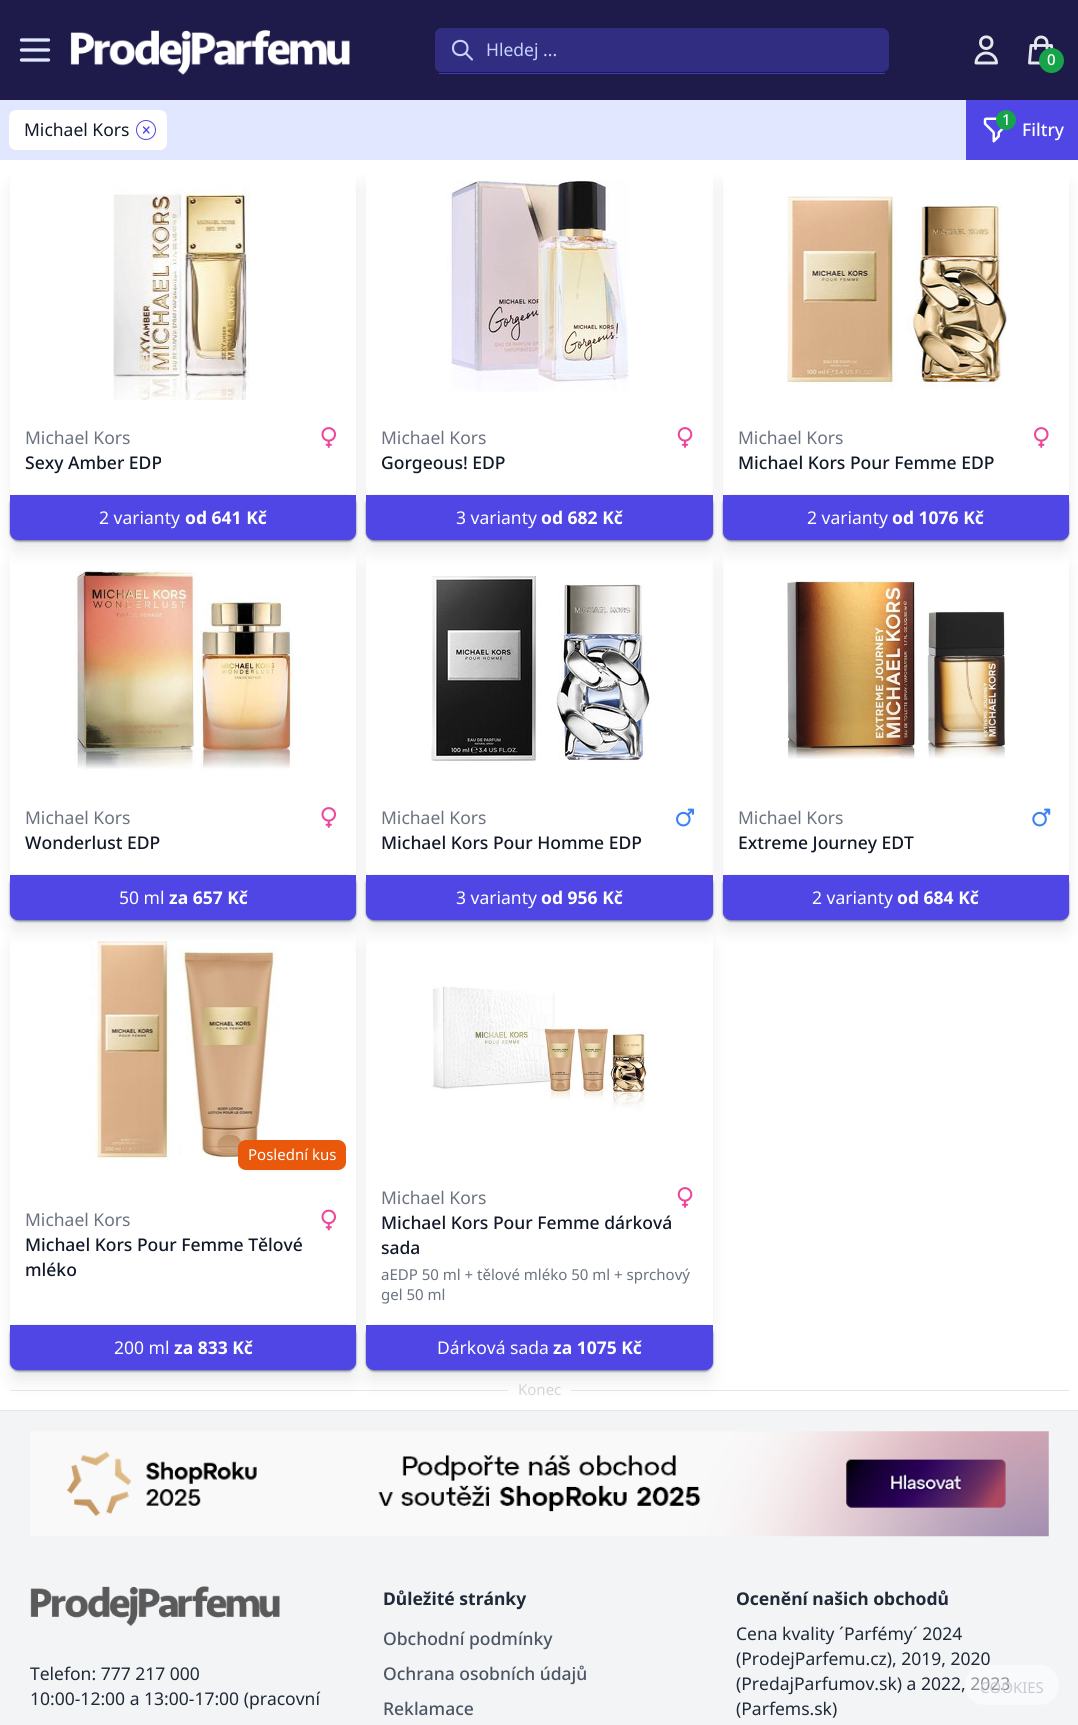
import math
import cairocffi as cairo

surface = cairo.ImageSurface(cairo.FORMAT_RGB24, 1078, 1725)
cr = cairo.Context(surface)
options = cairo.FontOptions()
options.set_hint_metrics(cairo.HINT_METRICS_OFF)
options.set_hint_style(cairo.HINT_STYLE_NONE)
cr.set_font_options(options)
cr.set_miter_limit(4)


def use_color(code):
    cr.set_source_rgb(*(v / 255 for v in bytes.fromhex(code[-6:])))


def spaced_text(x, y, s, letter, word):
    cr.move_to(x, y)
    for ch in s:
        cr.show_text(ch)
        cr.rel_move_to(letter + word * (ch == ' '), 0)


def round_rect(x, y, w, h, r):
    cr.new_sub_path()
    for i, (u, v) in enumerate([(x + w - r, y + h - r), (x + r, y + h - r), (x + r, y + r), (x + w - r, y + r)]):
        cr.arc(u, v, r, i * math.pi / 2, (i + 1) * math.pi / 2)
    cr.close_path()


def shadow(x, y, w, h, r, blur, alpha):
    cr.push_group_with_content(cairo.CONTENT_ALPHA)
    cr.set_operator(cairo.OPERATOR_SOURCE)
    for i in range(15, -16, -2):
        e = blur * i / 6
        if min(w, h) + 2 * e > 0:
            cr.set_source_rgba(0, 0, 0, alpha * math.erfc((i - 1) / 8.5) / 2)
            round_rect(x - e, y - e, w + 2 * e, h + 2 * e, max(0, min(r + e + blur * .6, min(w, h) / 2 + e)))
            cr.fill()
    cr.mask(cr.pop_group())


def picture(path, x, y, w, h):
    cr.save()
    cr.set_source_surface(cairo.ImageSurface.create_from_png(path), x, y)
    cr.rectangle(x, y, w, h)
    cr.fill()
    cr.restore()


use_color("#ffffff")
cr.paint()
use_color("#1e1b4b")
cr.rectangle(0, 0, 1078, 100)
cr.fill()
cr.new_path()
cr.move_to(21.5, 40)
cr.line_to(48.5, 40)
cr.move_to(21.5, 50)
cr.line_to(48.5, 50)
cr.move_to(21.5, 60)
cr.line_to(48.5, 60)
use_color("#e0e7ff")
cr.set_line_width(3.3)
cr.set_line_cap(cairo.LINE_CAP_ROUND)
cr.set_line_join(cairo.LINE_JOIN_ROUND)
cr.stroke()
picture("img1.png", 70, 30, 280, 45)
use_color("#312e81")
cr.new_path()
cr.move_to(442, 28)
cr.line_to(881, 28)
cr.curve_to(885, 28, 889, 31, 889, 35)
cr.line_to(889, 66)
cr.curve_to(889, 70, 885, 72, 881, 72)
cr.line_to(442, 72)
cr.curve_to(438, 72, 435, 70, 435, 66)
cr.line_to(435, 35)
cr.curve_to(435, 31, 438, 28, 442, 28)
cr.close_path()
cr.fill()
cr.new_path()
cr.move_to(472, 59.5)
cr.line_to(465.5, 53)
cr.move_to(467.5, 48)
cr.curve_to(467.5, 57.5, 453, 57.5, 453, 48)
cr.curve_to(453, 38.5, 467.5, 38.5, 467.5, 48)
cr.close_path()
use_color("#c7d2fe")
cr.set_line_width(2.1)
cr.stroke()
use_color("#4338ca")
cr.rectangle(439, 73, 446, 1)
cr.fill()
cr.select_font_face("Noto Sans")
cr.set_font_size(17.5)
use_color("#c7d2fe")
cr.move_to(486, 56)
cr.show_text("Hledej ...")
cr.new_path()
cr.move_to(992, 42.5)
cr.curve_to(992, 50.5, 980.5, 50.5, 980.5, 42.5)
cr.curve_to(980.5, 35, 992, 35, 992, 42.5)
cr.close_path()
cr.move_to(986, 53)
cr.curve_to(980.5, 53, 976, 57.5, 976, 63)
cr.line_to(996.5, 63)
cr.curve_to(996.5, 57.5, 992, 53, 986, 53)
cr.close_path()
use_color("#e5e7eb")
cr.set_line_width(2.9)
cr.stroke()
cr.new_path()
cr.move_to(1047, 48.5)
cr.line_to(1047, 42.5)
cr.curve_to(1047, 39.5, 1044.5, 37, 1041, 37)
cr.curve_to(1038, 37, 1035.5, 39.5, 1035.5, 42.5)
cr.line_to(1035.5, 48.5)
cr.move_to(1031, 45.5)
cr.line_to(1051.5, 45.5)
cr.line_to(1053, 63)
cr.line_to(1029.5, 63)
cr.close_path()
cr.stroke()
use_color("#16a34a")
cr.arc(1051.5, 60.5, 12.5, 0, 2 * math.pi)
cr.fill()
cr.select_font_face("Noto Sans Medium")
cr.set_font_size(15)
use_color("#ffffff")
spaced_text(1047, 65, "0", -1, 0)
cr.save()
cr.set_fill_rule(cairo.FILL_RULE_EVEN_ODD)
cr.new_path()
cr.move_to(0, 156)
cr.line_to(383, 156)
cr.line_to(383, 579)
cr.line_to(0, 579)
cr.close_path()
cr.move_to(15, 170)
cr.line_to(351, 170)
cr.curve_to(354, 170, 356, 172, 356, 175)
cr.line_to(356, 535)
cr.curve_to(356, 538, 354, 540, 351, 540)
cr.line_to(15, 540)
cr.curve_to(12, 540, 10, 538, 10, 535)
cr.line_to(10, 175)
cr.curve_to(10, 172, 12, 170, 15, 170)
cr.close_path()
cr.clip()
use_color("#000000")
shadow(14, 186, 339, 363, 1, 9.5, 0.1)
cr.restore()
cr.save()
cr.rectangle(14, 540, 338, 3)
cr.clip()
use_color("#000000")
shadow(15, 180, 336, 360, 0, 4, 0.1)
cr.restore()
use_color("#64748b")
shadow(10, 496, 346, 45, 8, 1, 1)
use_color("#4f46e5")
cr.new_path()
cr.move_to(10, 495)
cr.line_to(356, 495)
cr.line_to(356, 532)
cr.curve_to(356, 536.5, 352.5, 540, 348, 540)
cr.line_to(18, 540)
cr.curve_to(13.5, 540, 10, 536.5, 10, 532)
cr.close_path()
cr.fill()
cr.save()
cr.set_fill_rule(cairo.FILL_RULE_EVEN_ODD)
cr.new_path()
cr.move_to(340, 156)
cr.line_to(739, 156)
cr.line_to(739, 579)
cr.line_to(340, 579)
cr.close_path()
cr.move_to(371, 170)
cr.line_to(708, 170)
cr.curve_to(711, 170, 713, 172, 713, 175)
cr.line_to(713, 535)
cr.curve_to(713, 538, 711, 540, 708, 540)
cr.line_to(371, 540)
cr.curve_to(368, 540, 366, 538, 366, 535)
cr.line_to(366, 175)
cr.curve_to(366, 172, 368, 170, 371, 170)
cr.close_path()
cr.clip()
use_color("#000000")
shadow(370, 186, 339, 363, 1, 9.5, 0.1)
cr.restore()
cr.save()
cr.rectangle(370, 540, 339, 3)
cr.clip()
use_color("#000000")
shadow(371, 180, 337, 360, 0, 4, 0.1)
cr.restore()
use_color("#64748b")
shadow(366, 496, 347, 45, 8, 1, 1)
use_color("#4f46e5")
cr.new_path()
cr.move_to(366, 495)
cr.line_to(713, 495)
cr.line_to(713, 532)
cr.curve_to(713, 536.5, 709.5, 540, 705, 540)
cr.line_to(374, 540)
cr.curve_to(369.5, 540, 366, 536.5, 366, 532)
cr.close_path()
cr.fill()
cr.save()
cr.set_fill_rule(cairo.FILL_RULE_EVEN_ODD)
cr.new_path()
cr.move_to(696, 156)
cr.line_to(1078, 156)
cr.line_to(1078, 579)
cr.line_to(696, 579)
cr.close_path()
cr.move_to(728, 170)
cr.line_to(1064, 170)
cr.curve_to(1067, 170, 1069, 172, 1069, 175)
cr.line_to(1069, 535)
cr.curve_to(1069, 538, 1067, 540, 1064, 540)
cr.line_to(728, 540)
cr.curve_to(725, 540, 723, 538, 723, 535)
cr.line_to(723, 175)
cr.curve_to(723, 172, 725, 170, 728, 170)
cr.close_path()
cr.clip()
use_color("#000000")
shadow(726, 186, 339, 363, 1, 9.5, 0.1)
cr.restore()
use_color("#e0e7ff")
cr.rectangle(0, 100, 966, 60)
cr.fill()
use_color("#ffffff")
round_rect(8.5, 109.5, 159, 41, 7.5)
cr.fill_preserve()
use_color("#e0e7ff")
cr.set_line_width(1)
cr.set_line_cap(cairo.LINE_CAP_BUTT)
cr.set_line_join(cairo.LINE_JOIN_MITER)
cr.stroke()
cr.select_font_face("Noto Sans")
cr.set_font_size(17.5)
use_color("#111827")
cr.move_to(24, 136)
cr.show_text("Michael Kors")
cr.new_path()
cr.arc(146, 130, 9.5, 0, 2 * math.pi)
use_color("#4f46e5")
cr.stroke()
cr.new_path()
cr.move_to(143.5, 127)
cr.line_to(149, 133)
cr.move_to(149, 127)
cr.line_to(143.5, 133)
cr.set_line_width(1.4)
cr.set_line_cap(cairo.LINE_CAP_ROUND)
cr.stroke()
cr.rectangle(966, 100, 112, 60)
cr.fill()
picture("img2.png", 983, 117, 21, 26)
use_color("#16a34a")
cr.arc(1006, 120, 10, 0, 2 * math.pi)
cr.fill()
cr.select_font_face("Noto Sans Medium")
cr.set_font_size(15)
use_color("#ffffff")
cr.move_to(1002, 125)
cr.show_text("1")
cr.set_font_size(17.5)
cr.move_to(1022, 136)
cr.show_text("Filtry")
picture("img3.png", 113, 184, 137, 216)
cr.select_font_face("Noto Sans")
use_color("#6b7280")
cr.move_to(25, 444)
cr.show_text("Michael Kors")
picture("img4.png", 321, 427, 15, 21)
cr.select_font_face("Noto Sans Medium")
use_color("#111827")
cr.move_to(25, 469)
cr.show_text("Sexy Amber EDP")
cr.select_font_face("Noto Sans")
use_color("#ffffff")
cr.move_to(99, 524)
cr.show_text("2 varianty")
cr.select_font_face("Noto Sans", cairo.FONT_SLANT_NORMAL, cairo.FONT_WEIGHT_BOLD)
cr.move_to(185, 524)
cr.show_text("od 641 Kč")
picture("img5.png", 446, 180, 183, 212)
cr.select_font_face("Noto Sans")
use_color("#6b7280")
cr.move_to(381, 444)
cr.show_text("Michael Kors")
picture("img6.png", 677, 427, 16, 21)
cr.select_font_face("Noto Sans Medium")
use_color("#111827")
cr.move_to(381, 469)
cr.show_text("Gorgeous! EDP")
cr.select_font_face("Noto Sans")
use_color("#ffffff")
cr.move_to(456, 524)
cr.show_text("3 varianty")
cr.select_font_face("Noto Sans", cairo.FONT_SLANT_NORMAL, cairo.FONT_WEIGHT_BOLD)
cr.move_to(541, 524)
cr.show_text("od 682 Kč")
cr.save()
cr.rectangle(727, 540, 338, 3)
cr.clip()
use_color("#000000")
shadow(728, 180, 336, 360, 0, 4, 0.1)
cr.restore()
picture("img7.png", 786, 196, 221, 192)
cr.select_font_face("Noto Sans")
use_color("#6b7280")
cr.move_to(738, 444)
cr.show_text("Michael Kors")
picture("img8.png", 1034, 427, 15, 21)
cr.select_font_face("Noto Sans Medium")
use_color("#111827")
cr.move_to(738, 469)
cr.show_text("Michael Kors Pour Femme EDP")
use_color("#64748b")
shadow(723, 496, 346, 45, 8, 1, 1)
use_color("#4f46e5")
cr.new_path()
cr.move_to(723, 495)
cr.line_to(1069, 495)
cr.line_to(1069, 532)
cr.curve_to(1069, 536.5, 1065.5, 540, 1061, 540)
cr.line_to(731, 540)
cr.curve_to(726.5, 540, 723, 536.5, 723, 532)
cr.close_path()
cr.fill()
cr.select_font_face("Noto Sans")
use_color("#ffffff")
cr.move_to(807, 524)
cr.show_text("2 varianty")
cr.select_font_face("Noto Sans", cairo.FONT_SLANT_NORMAL, cairo.FONT_WEIGHT_BOLD)
cr.move_to(892, 524)
cr.show_text("od 1076 Kč")
cr.save()
cr.rectangle(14, 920, 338, 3)
cr.clip()
use_color("#000000")
shadow(15, 560, 336, 360, 0, 4, 0.1)
cr.restore()
cr.save()
cr.set_fill_rule(cairo.FILL_RULE_EVEN_ODD)
cr.new_path()
cr.move_to(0, 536)
cr.line_to(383, 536)
cr.line_to(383, 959)
cr.line_to(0, 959)
cr.close_path()
cr.move_to(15, 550)
cr.line_to(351, 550)
cr.curve_to(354, 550, 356, 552, 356, 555)
cr.line_to(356, 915)
cr.curve_to(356, 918, 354, 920, 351, 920)
cr.line_to(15, 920)
cr.curve_to(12, 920, 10, 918, 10, 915)
cr.line_to(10, 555)
cr.curve_to(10, 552, 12, 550, 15, 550)
cr.close_path()
cr.clip()
use_color("#000000")
shadow(14, 566, 339, 363, 1, 9.5, 0.1)
cr.restore()
picture("img9.png", 74, 570, 220, 201)
cr.select_font_face("Noto Sans")
use_color("#6b7280")
cr.move_to(25, 824)
cr.show_text("Michael Kors")
picture("img4.png", 321, 807, 15, 21)
cr.select_font_face("Noto Sans Medium")
use_color("#111827")
cr.move_to(25, 849)
cr.show_text("Wonderlust EDP")
use_color("#64748b")
shadow(10, 876, 346, 45, 8, 1, 1)
use_color("#4f46e5")
cr.new_path()
cr.move_to(10, 875)
cr.line_to(356, 875)
cr.line_to(356, 912)
cr.curve_to(356, 916.5, 352.5, 920, 348, 920)
cr.line_to(18, 920)
cr.curve_to(13.5, 920, 10, 916.5, 10, 912)
cr.close_path()
cr.fill()
cr.select_font_face("Noto Sans")
use_color("#ffffff")
cr.move_to(119, 904)
cr.show_text("50 ml")
cr.select_font_face("Noto Sans", cairo.FONT_SLANT_NORMAL, cairo.FONT_WEIGHT_BOLD)
cr.move_to(169, 904)
cr.show_text("za 657 Kč")
cr.save()
cr.rectangle(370, 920, 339, 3)
cr.clip()
use_color("#000000")
shadow(371, 560, 337, 360, 0, 4, 0.1)
cr.restore()
cr.save()
cr.set_fill_rule(cairo.FILL_RULE_EVEN_ODD)
cr.new_path()
cr.move_to(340, 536)
cr.line_to(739, 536)
cr.line_to(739, 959)
cr.line_to(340, 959)
cr.close_path()
cr.move_to(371, 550)
cr.line_to(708, 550)
cr.curve_to(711, 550, 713, 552, 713, 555)
cr.line_to(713, 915)
cr.curve_to(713, 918, 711, 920, 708, 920)
cr.line_to(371, 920)
cr.curve_to(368, 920, 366, 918, 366, 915)
cr.line_to(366, 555)
cr.curve_to(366, 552, 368, 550, 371, 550)
cr.close_path()
cr.clip()
use_color("#000000")
shadow(370, 566, 339, 363, 1, 9.5, 0.1)
cr.restore()
picture("img10.png", 430, 576, 220, 187)
cr.select_font_face("Noto Sans")
use_color("#6b7280")
cr.move_to(381, 824)
cr.show_text("Michael Kors")
picture("img11.png", 676, 808, 18, 19)
cr.select_font_face("Noto Sans Medium")
use_color("#111827")
cr.move_to(381, 849)
cr.show_text("Michael Kors Pour Homme EDP")
use_color("#64748b")
shadow(366, 876, 347, 45, 8, 1, 1)
use_color("#4f46e5")
cr.new_path()
cr.move_to(366, 875)
cr.line_to(713, 875)
cr.line_to(713, 912)
cr.curve_to(713, 916.5, 709.5, 920, 705, 920)
cr.line_to(374, 920)
cr.curve_to(369.5, 920, 366, 916.5, 366, 912)
cr.close_path()
cr.fill()
cr.select_font_face("Noto Sans")
use_color("#ffffff")
cr.move_to(456, 904)
cr.show_text("3 varianty")
cr.select_font_face("Noto Sans", cairo.FONT_SLANT_NORMAL, cairo.FONT_WEIGHT_BOLD)
cr.move_to(541, 904)
cr.show_text("od 956 Kč")
cr.save()
cr.rectangle(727, 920, 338, 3)
cr.clip()
use_color("#000000")
shadow(728, 560, 336, 360, 0, 4, 0.1)
cr.restore()
cr.save()
cr.set_fill_rule(cairo.FILL_RULE_EVEN_ODD)
cr.new_path()
cr.move_to(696, 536)
cr.line_to(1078, 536)
cr.line_to(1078, 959)
cr.line_to(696, 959)
cr.close_path()
cr.move_to(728, 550)
cr.line_to(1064, 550)
cr.curve_to(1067, 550, 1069, 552, 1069, 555)
cr.line_to(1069, 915)
cr.curve_to(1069, 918, 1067, 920, 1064, 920)
cr.line_to(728, 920)
cr.curve_to(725, 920, 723, 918, 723, 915)
cr.line_to(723, 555)
cr.curve_to(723, 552, 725, 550, 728, 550)
cr.close_path()
cr.clip()
use_color("#000000")
shadow(726, 566, 339, 363, 1, 9.5, 0.1)
cr.restore()
picture("img12.png", 787, 580, 219, 179)
cr.select_font_face("Noto Sans")
use_color("#6b7280")
cr.move_to(738, 824)
cr.show_text("Michael Kors")
picture("img13.png", 1032, 808, 19, 19)
cr.select_font_face("Noto Sans Medium")
use_color("#111827")
cr.move_to(738, 849)
cr.show_text("Extreme Journey EDT")
use_color("#64748b")
shadow(723, 876, 346, 45, 8, 1, 1)
use_color("#4f46e5")
cr.new_path()
cr.move_to(723, 875)
cr.line_to(1069, 875)
cr.line_to(1069, 912)
cr.curve_to(1069, 916.5, 1065.5, 920, 1061, 920)
cr.line_to(731, 920)
cr.curve_to(726.5, 920, 723, 916.5, 723, 912)
cr.close_path()
cr.fill()
cr.select_font_face("Noto Sans")
use_color("#ffffff")
cr.move_to(812, 904)
cr.show_text("2 varianty")
cr.select_font_face("Noto Sans", cairo.FONT_SLANT_NORMAL, cairo.FONT_WEIGHT_BOLD)
cr.move_to(897, 904)
cr.show_text("od 684 Kč")
cr.save()
cr.rectangle(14, 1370, 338, 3)
cr.clip()
use_color("#000000")
shadow(15, 940, 336, 430, 0, 4, 0.1)
cr.restore()
use_color("#e5e7eb")
cr.rectangle(10, 1390, 498, 1)
cr.fill()
cr.save()
cr.set_fill_rule(cairo.FILL_RULE_EVEN_ODD)
cr.new_path()
cr.move_to(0, 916)
cr.line_to(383, 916)
cr.line_to(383, 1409)
cr.line_to(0, 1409)
cr.close_path()
cr.move_to(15, 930)
cr.line_to(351, 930)
cr.curve_to(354, 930, 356, 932, 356, 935)
cr.line_to(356, 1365)
cr.curve_to(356, 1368, 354, 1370, 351, 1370)
cr.line_to(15, 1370)
cr.curve_to(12, 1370, 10, 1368, 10, 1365)
cr.line_to(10, 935)
cr.curve_to(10, 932, 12, 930, 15, 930)
cr.close_path()
cr.clip()
use_color("#000000")
shadow(14, 946, 339, 433, 1, 9.5, 0.1)
cr.restore()
picture("img14.png", 90, 940, 192, 220)
use_color("#000000")
shadow(238, 1141, 108, 30, 8, 1, 0.05)
use_color("#ea580c")
round_rect(238, 1140, 108, 30, 8)
cr.fill()
cr.select_font_face("Noto Sans")
cr.set_font_size(15)
use_color("#ffffff")
cr.move_to(248, 1160)
cr.show_text("Poslední kus")
cr.set_font_size(17.5)
use_color("#6b7280")
cr.move_to(25, 1226)
cr.show_text("Michael Kors")
picture("img15.png", 321, 1209, 15, 22)
cr.select_font_face("Noto Sans Medium")
use_color("#111827")
cr.move_to(25, 1251)
cr.show_text("Michael Kors Pour Femme Tělové")
cr.move_to(25, 1276)
cr.show_text("mléko")
use_color("#64748b")
shadow(10, 1326, 346, 45, 8, 1, 1)
use_color("#4f46e5")
cr.new_path()
cr.move_to(10, 1325)
cr.line_to(356, 1325)
cr.line_to(356, 1362)
cr.curve_to(356, 1366.5, 352.5, 1370, 348, 1370)
cr.line_to(18, 1370)
cr.curve_to(13.5, 1370, 10, 1366.5, 10, 1362)
cr.close_path()
cr.fill()
cr.select_font_face("Noto Sans")
use_color("#ffffff")
cr.move_to(114, 1354)
cr.show_text("200 ml")
cr.select_font_face("Noto Sans", cairo.FONT_SLANT_NORMAL, cairo.FONT_WEIGHT_BOLD)
cr.move_to(174, 1354)
cr.show_text("za 833 Kč")
cr.save()
cr.rectangle(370, 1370, 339, 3)
cr.clip()
use_color("#000000")
shadow(371, 940, 337, 430, 0, 4, 0.1)
cr.restore()
use_color("#e5e7eb")
cr.rectangle(571, 1390, 498, 1)
cr.fill()
cr.save()
cr.set_fill_rule(cairo.FILL_RULE_EVEN_ODD)
cr.new_path()
cr.move_to(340, 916)
cr.line_to(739, 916)
cr.line_to(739, 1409)
cr.line_to(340, 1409)
cr.close_path()
cr.move_to(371, 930)
cr.line_to(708, 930)
cr.curve_to(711, 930, 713, 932, 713, 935)
cr.line_to(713, 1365)
cr.curve_to(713, 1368, 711, 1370, 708, 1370)
cr.line_to(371, 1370)
cr.curve_to(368, 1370, 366, 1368, 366, 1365)
cr.line_to(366, 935)
cr.curve_to(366, 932, 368, 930, 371, 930)
cr.close_path()
cr.clip()
use_color("#000000")
shadow(370, 946, 339, 433, 1, 9.5, 0.1)
cr.restore()
picture("img16.png", 431, 986, 216, 125)
cr.select_font_face("Noto Sans")
use_color("#6b7280")
cr.move_to(381, 1204)
cr.show_text("Michael Kors")
picture("img6.png", 677, 1187, 16, 21)
cr.select_font_face("Noto Sans Medium")
use_color("#111827")
cr.move_to(381, 1229)
cr.show_text("Michael Kors Pour Femme dárková")
cr.move_to(381, 1254)
cr.show_text("sada")
cr.select_font_face("Noto Sans")
cr.set_font_size(15)
use_color("#6b7280")
cr.move_to(381, 1280)
cr.show_text("aEDP 50 ml + tělové mléko 50 ml + sprchový")
cr.move_to(381, 1300)
cr.show_text("gel 50 ml")
use_color("#64748b")
shadow(366, 1326, 347, 45, 8, 1, 1)
use_color("#4f46e5")
cr.new_path()
cr.move_to(366, 1325)
cr.line_to(713, 1325)
cr.line_to(713, 1362)
cr.curve_to(713, 1366.5, 709.5, 1370, 705, 1370)
cr.line_to(374, 1370)
cr.curve_to(369.5, 1370, 366, 1366.5, 366, 1362)
cr.close_path()
cr.fill()
cr.set_font_size(17.5)
use_color("#ffffff")
cr.move_to(437, 1354)
cr.show_text("Dárková sada")
cr.select_font_face("Noto Sans", cairo.FONT_SLANT_NORMAL, cairo.FONT_WEIGHT_BOLD)
cr.move_to(553, 1354)
cr.show_text("za 1075 Kč")
cr.select_font_face("Noto Sans")
cr.set_font_size(15)
use_color("#d1d5db")
cr.move_to(518, 1395)
cr.show_text("Konec")
use_color("#f3f4f6")
cr.rectangle(0, 1411, 1078, 314)
cr.fill()
use_color("#e5e7eb")
cr.rectangle(0, 1410, 1078, 1)
cr.fill()
picture("img17.png", 30, 1431, 1019, 106)
picture("img18.png", 30, 1586, 250, 41)
cr.set_font_size(17.5)
use_color("#1f2937")
cr.move_to(30, 1680)
cr.show_text("Telefon: 777 217 000")
cr.move_to(30, 1705)
cr.show_text("10:00-12:00 a 13:00-17:00 (pracovní")
cr.select_font_face("Noto Sans", cairo.FONT_SLANT_NORMAL, cairo.FONT_WEIGHT_BOLD)
cr.move_to(383, 1605)
cr.show_text("Důležité stránky")
cr.select_font_face("Noto Sans Medium")
use_color("#4b5563")
cr.move_to(383, 1645)
cr.show_text("Obchodní podmínky")
cr.move_to(383, 1680)
cr.show_text("Ochrana osobních údajů")
cr.move_to(383, 1715)
cr.show_text("Reklamace")
cr.select_font_face("Noto Sans", cairo.FONT_SLANT_NORMAL, cairo.FONT_WEIGHT_BOLD)
use_color("#1f2937")
cr.move_to(736, 1605)
cr.show_text("Ocenění našich obchodů")
cr.select_font_face("Noto Sans")
cr.move_to(736, 1640)
cr.show_text("Cena kvality ´Parfémy´ 2024")
cr.move_to(736, 1665)
cr.show_text("(ProdejParfemu.cz), 2019, 2020")
cr.move_to(736, 1690)
cr.show_text("(PredajParfumov.sk) a 2022, 2023")
cr.move_to(736, 1715)
cr.show_text("(Parfems.sk)")
cr.set_source_rgba(1, 1, 1, 0.5)
round_rect(965, 1665, 94, 40, 20)
cr.fill()
cr.set_font_size(15)
use_color("#c7cbd1")
cr.move_to(980, 1693)
cr.show_text("COOKIES")
surface.write_to_png("result.png")
